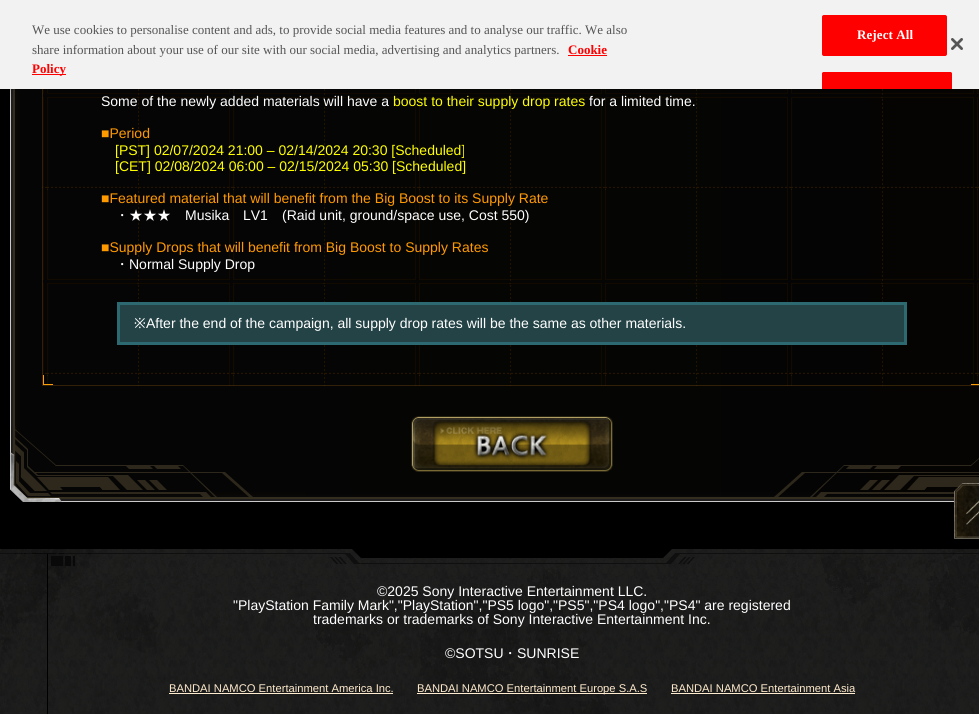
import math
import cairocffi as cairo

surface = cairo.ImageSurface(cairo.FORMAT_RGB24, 979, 714)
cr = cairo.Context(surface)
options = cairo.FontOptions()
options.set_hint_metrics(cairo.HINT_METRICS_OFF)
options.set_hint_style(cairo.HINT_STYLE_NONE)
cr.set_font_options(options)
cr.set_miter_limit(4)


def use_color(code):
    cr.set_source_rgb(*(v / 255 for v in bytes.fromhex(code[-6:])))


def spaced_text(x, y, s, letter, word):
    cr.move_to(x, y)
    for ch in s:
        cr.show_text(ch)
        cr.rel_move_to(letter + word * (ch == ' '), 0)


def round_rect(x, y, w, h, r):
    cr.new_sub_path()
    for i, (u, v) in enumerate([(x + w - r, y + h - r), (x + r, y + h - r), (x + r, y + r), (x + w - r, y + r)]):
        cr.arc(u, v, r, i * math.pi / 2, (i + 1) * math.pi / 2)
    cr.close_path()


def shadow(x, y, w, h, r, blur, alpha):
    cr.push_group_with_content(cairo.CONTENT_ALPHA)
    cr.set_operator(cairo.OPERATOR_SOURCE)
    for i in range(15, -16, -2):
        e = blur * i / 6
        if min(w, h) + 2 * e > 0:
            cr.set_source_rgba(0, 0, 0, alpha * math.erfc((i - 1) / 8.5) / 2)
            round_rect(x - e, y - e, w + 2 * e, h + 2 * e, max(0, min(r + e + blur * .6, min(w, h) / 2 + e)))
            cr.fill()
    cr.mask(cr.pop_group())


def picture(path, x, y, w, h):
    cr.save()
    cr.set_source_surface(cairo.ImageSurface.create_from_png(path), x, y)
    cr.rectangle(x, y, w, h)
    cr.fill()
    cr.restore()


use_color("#000000")
cr.paint()
picture("img2.png", 10, 89, 969, 337)
picture("img3.png", 42, 89, 937, 297)
cr.rectangle(42.5, -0.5, 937, 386)
cr.set_source_rgba(0.38, 0.239, 0.051, 0.5)
cr.set_line_width(1)
cr.stroke()
use_color("#000000")
shadow(0, 0, 979, 89, 0, 9, 0.2)
use_color("#f2f2f2")
cr.rectangle(0, 0, 979, 89)
cr.fill()
cr.select_font_face("Liberation Serif")
cr.set_font_size(13)
use_color("#555555")
cr.move_to(32, 34)
cr.show_text("We use cookies to personalise content and ads, to provide social media features and to analyse our traffic. We also")
cr.move_to(32, 54)
cr.show_text("share information about your use of our site with our social media, advertising and analytics partners.")
cr.select_font_face("Liberation Serif", cairo.FONT_SLANT_NORMAL, cairo.FONT_WEIGHT_BOLD)
use_color("#ff0000")
cr.move_to(568, 54)
cr.show_text("Cookie")
cr.rectangle(568, 55, 39, 1)
cr.fill()
cr.rectangle(32, 74, 34, 1)
cr.fill()
cr.move_to(32, 73)
cr.show_text("Policy")
round_rect(822.5, 15.5, 124, 40, 1.5)
cr.fill_preserve()
cr.stroke()
use_color("#ffffff")
spaced_text(857, 39, "Reject All", 0.1, 0)
use_color("#ff0000")
cr.new_path()
cr.move_to(824, 72)
cr.line_to(950, 72)
cr.curve_to(951, 72, 952, 73, 952, 74)
cr.line_to(952, 89)
cr.line_to(822, 89)
cr.line_to(822, 74)
cr.curve_to(822, 73, 823, 72, 824, 72)
cr.close_path()
cr.fill()
cr.save()
cr.rectangle(0, 0, 979, 89)
cr.clip()
round_rect(822.5, 72.5, 129, 41, 1.5)
cr.stroke()
cr.restore()
picture("img1.png", 951, 38, 12, 12)
cr.select_font_face("Liberation Sans")
cr.set_font_size(14)
use_color("#ffffff")
cr.move_to(101, 106)
cr.show_text("Some of the newly added materials will have a")
use_color("#ffff00")
cr.move_to(393, 106)
cr.show_text("boost to their supply drop rates")
use_color("#ffffff")
cr.move_to(589, 106)
cr.show_text("for a limited time.")
use_color("#ff9900")
cr.move_to(101, 138)
cr.show_text("■Period")
use_color("#ffff00")
cr.move_to(115, 155)
cr.show_text("[PST] 02/07/2024 21:00 – 02/14/2024 20:30 [Scheduled]")
cr.move_to(115, 171)
cr.show_text("[CET] 02/08/2024 06:00 – 02/15/2024 05:30 [Scheduled]")
use_color("#ff9900")
cr.move_to(101, 203)
cr.show_text("■Featured material that will benefit from the Big Boost to its Supply Rate")
cr.select_font_face("WenQuanYi Zen Hei Medium")
use_color("#ffffff")
cr.move_to(115, 220)
cr.show_text("・★★★")
cr.select_font_face("Liberation Sans")
cr.move_to(185, 220)
cr.show_text("Musika")
cr.move_to(243, 220)
cr.show_text("LV1")
cr.move_to(282, 220)
cr.show_text("(Raid unit, ground/space use, Cost 550)")
use_color("#ff9900")
cr.move_to(101, 252)
cr.show_text("■Supply Drops that will benefit from Big Boost to Supply Rates")
cr.select_font_face("WenQuanYi Zen Hei Medium")
use_color("#ffffff")
cr.move_to(115, 269)
cr.show_text("・")
cr.select_font_face("Liberation Sans")
cr.move_to(129, 269)
cr.show_text("Normal Supply Drop")
use_color("#244346")
cr.rectangle(118.5, 303.5, 787, 40)
cr.fill_preserve()
use_color("#2c6970")
cr.set_line_width(3)
cr.stroke()
cr.select_font_face("Noto Sans")
use_color("#ffffff")
cr.move_to(134, 328)
cr.show_text("※")
cr.select_font_face("Liberation Sans")
cr.move_to(146, 328)
cr.show_text("After the end of the campaign, all supply drop rates will be the same as other materials.")
picture("img5.png", 10, 426, 969, 76)
picture("img4.png", 411, 416, 202, 56)
picture("img6.png", 954, 483, 25, 56)
picture("img7.png", 0, 549, 979, 165)
cr.move_to(377, 596)
cr.show_text("©2025 Sony Interactive Entertainment LLC.")
cr.move_to(233, 610)
cr.show_text("\"PlayStation Family Mark\",\"PlayStation\",\"PS5 logo\",\"PS5\",\"PS4 logo\",\"PS4\" are registered")
cr.move_to(313, 624)
cr.show_text("trademarks or trademarks of Sony Interactive Entertainment Inc.")
cr.move_to(445, 658)
cr.show_text("©SOTSU")
cr.select_font_face("WenQuanYi Zen Hei Medium")
cr.move_to(503, 658)
cr.show_text("・")
cr.select_font_face("Liberation Sans")
cr.move_to(517, 658)
cr.show_text("SUNRISE")
cr.set_font_size(11.2)
use_color("#ffebcd")
cr.move_to(169, 692)
cr.show_text("BANDAI NAMCO Entertainment America Inc.")
cr.rectangle(169, 693, 224, 1)
cr.fill()
cr.rectangle(417, 693, 230, 1)
cr.fill()
cr.move_to(417, 692)
cr.show_text("BANDAI NAMCO Entertainment Europe S.A.S")
cr.move_to(671, 692)
cr.show_text("BANDAI NAMCO Entertainment Asia")
cr.rectangle(671, 693, 184, 1)
cr.fill()
surface.write_to_png("result.png")
